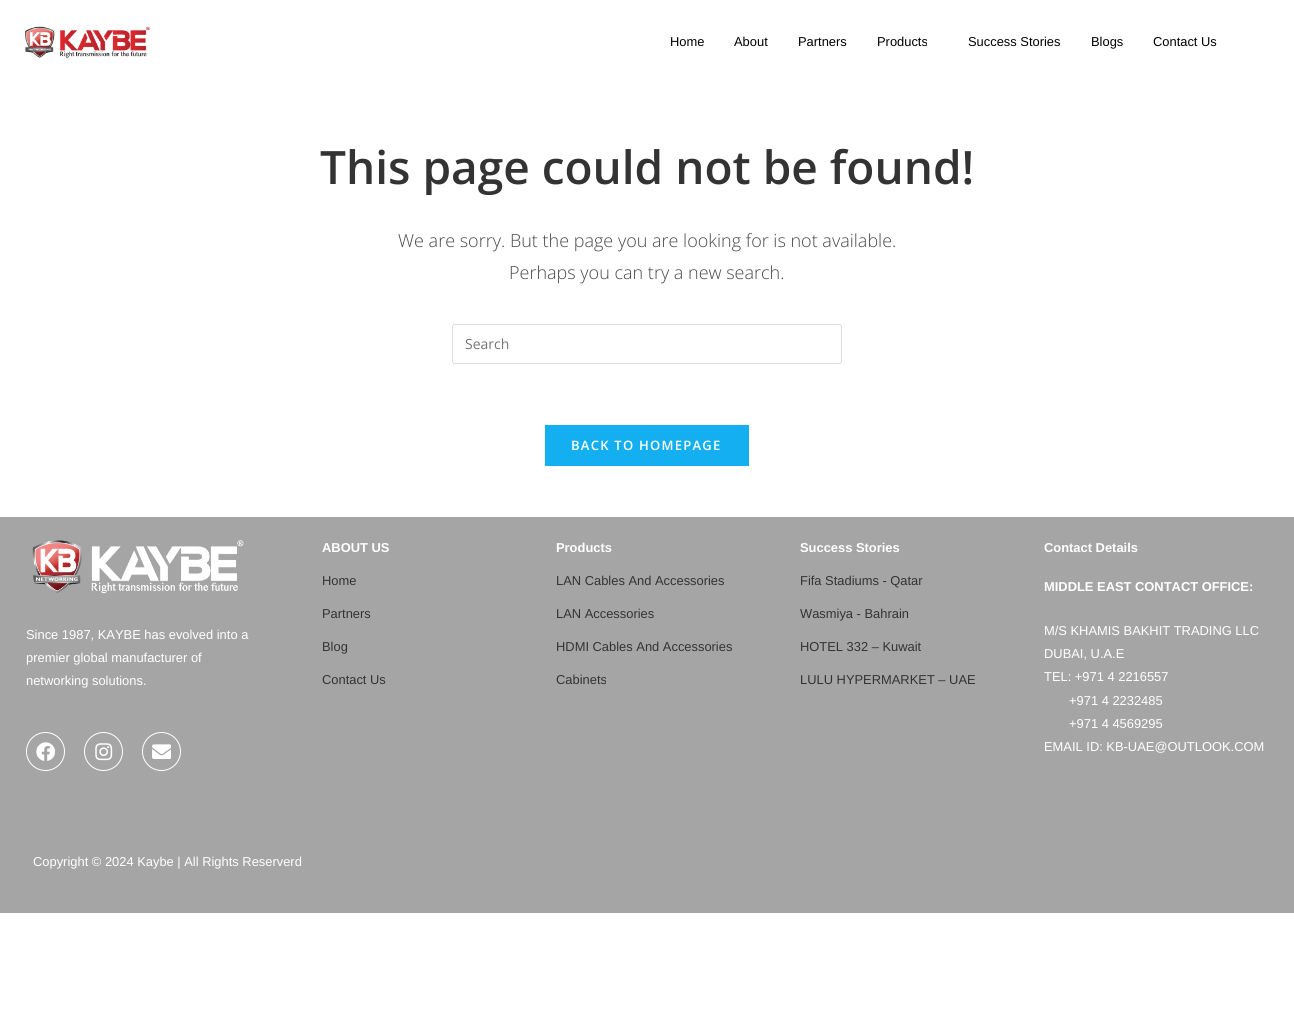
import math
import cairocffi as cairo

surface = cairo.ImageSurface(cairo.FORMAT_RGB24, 1294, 1009)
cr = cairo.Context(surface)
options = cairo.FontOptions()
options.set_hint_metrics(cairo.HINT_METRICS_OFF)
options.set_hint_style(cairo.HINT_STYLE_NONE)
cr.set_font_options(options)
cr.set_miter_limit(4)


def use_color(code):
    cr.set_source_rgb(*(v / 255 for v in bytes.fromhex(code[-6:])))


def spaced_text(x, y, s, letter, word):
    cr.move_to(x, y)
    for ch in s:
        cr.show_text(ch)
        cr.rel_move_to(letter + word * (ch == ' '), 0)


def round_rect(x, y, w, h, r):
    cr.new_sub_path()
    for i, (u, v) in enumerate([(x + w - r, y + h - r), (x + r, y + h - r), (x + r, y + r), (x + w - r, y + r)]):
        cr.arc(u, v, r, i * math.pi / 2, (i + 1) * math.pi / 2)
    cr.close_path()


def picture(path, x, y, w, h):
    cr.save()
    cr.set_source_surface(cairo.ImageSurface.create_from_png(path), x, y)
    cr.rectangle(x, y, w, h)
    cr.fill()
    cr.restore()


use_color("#ffffff")
cr.paint()
picture("img1.png", 25, 26, 125, 32)
cr.select_font_face("Liberation Sans")
cr.set_font_size(12.9)
use_color("#000000")
cr.move_to(670, 46)
cr.show_text("Home")
cr.move_to(734, 46)
cr.show_text("About")
cr.move_to(798, 46)
cr.show_text("Partners")
cr.move_to(877, 46)
cr.show_text("Products")
cr.move_to(968, 46)
cr.show_text("Success Stories")
cr.move_to(1091, 46)
cr.show_text("Blogs")
cr.move_to(1153, 46)
cr.show_text("Contact Us")
cr.select_font_face("Open Sans SemiBold")
cr.set_font_size(46)
use_color("#333333")
cr.move_to(320, 184)
cr.show_text("This page could not be found!")
cr.select_font_face("Open Sans Light")
cr.set_font_size(18)
use_color("#4a4a4a")
cr.move_to(398, 247)
cr.show_text("We are sorry. But the page you are looking for is not available.")
cr.move_to(509, 279)
cr.show_text("Perhaps you can try a new search.")
round_rect(452.5, 324.5, 389, 39, 2.5)
use_color("#dddddd")
cr.set_line_width(1)
cr.stroke()
cr.select_font_face("Open Sans")
cr.set_font_size(14)
use_color("#757575")
cr.move_to(465, 349)
cr.show_text("Search")
use_color("#13aff0")
cr.rectangle(545, 425, 204, 41)
cr.fill()
cr.select_font_face("Open Sans SemiBold")
cr.set_font_size(13)
use_color("#ffffff")
spaced_text(571, 450, "BACK TO HOMEPAGE", 1.25, 0)
use_color("#a5a5a5")
cr.rectangle(0, 517, 1294, 396)
cr.fill()
picture("img2.png", 32, 540, 212, 54)
cr.select_font_face("Liberation Sans")
cr.set_font_size(12.9)
use_color("#ffffff")
cr.move_to(26, 639)
cr.show_text("Since 1987, KAYBE has evolved into a")
cr.move_to(26, 662)
cr.show_text("premier global manufacturer of")
cr.move_to(26, 685)
cr.show_text("networking solutions.")
cr.new_path()
cr.arc(45.5, 751.5, 19, 0, 2 * math.pi)
cr.stroke()
picture("img3.png", 36, 742, 19, 19)
cr.arc(103.5, 751.5, 19, 0, 2 * math.pi)
cr.stroke()
picture("img4.png", 95, 743, 18, 18)
cr.arc(161.5, 751.5, 19, 0, 2 * math.pi)
cr.stroke()
picture("img5.png", 152, 744, 19, 15)
cr.select_font_face("Liberation Sans", cairo.FONT_SLANT_NORMAL, cairo.FONT_WEIGHT_BOLD)
cr.move_to(322, 552)
cr.show_text("ABOUT US")
cr.select_font_face("Liberation Sans")
use_color("#333333")
cr.move_to(322, 585)
cr.show_text("Home")
cr.move_to(322, 618)
cr.show_text("Partners")
cr.move_to(322, 651)
cr.show_text("Blog")
cr.move_to(322, 684)
cr.show_text("Contact Us")
cr.select_font_face("Liberation Sans", cairo.FONT_SLANT_NORMAL, cairo.FONT_WEIGHT_BOLD)
use_color("#ffffff")
cr.move_to(556, 552)
cr.show_text("Products")
cr.select_font_face("Liberation Sans")
use_color("#333333")
cr.move_to(556, 585)
cr.show_text("LAN Cables And Accessories")
cr.move_to(556, 618)
cr.show_text("LAN Accessories")
cr.move_to(556, 651)
cr.show_text("HDMI Cables And Accessories")
cr.move_to(556, 684)
cr.show_text("Cabinets")
cr.select_font_face("Liberation Sans", cairo.FONT_SLANT_NORMAL, cairo.FONT_WEIGHT_BOLD)
use_color("#ffffff")
cr.move_to(800, 552)
cr.show_text("Success Stories")
cr.select_font_face("Liberation Sans")
use_color("#333333")
cr.move_to(800, 585)
cr.show_text("Fifa Stadiums - Qatar")
cr.move_to(800, 618)
cr.show_text("Wasmiya - Bahrain")
cr.move_to(800, 651)
cr.show_text("HOTEL 332 – Kuwait")
cr.move_to(800, 684)
cr.show_text("LULU HYPERMARKET – UAE")
cr.select_font_face("Liberation Sans", cairo.FONT_SLANT_NORMAL, cairo.FONT_WEIGHT_BOLD)
use_color("#ffffff")
cr.move_to(1044, 552)
cr.show_text("Contact Details")
cr.move_to(1044, 591)
cr.show_text("MIDDLE EAST CONTACT OFFICE:")
cr.select_font_face("Liberation Sans")
cr.move_to(1044, 635)
cr.show_text("M/S KHAMIS BAKHIT TRADING LLC")
cr.move_to(1044, 658)
cr.show_text("DUBAI, U.A.E")
cr.move_to(1044, 681)
cr.show_text("TEL: +971 4 2216557")
cr.move_to(1069, 705)
cr.show_text("+971 4 2232485")
cr.move_to(1069, 728)
cr.show_text("+971 4 4569295")
cr.move_to(1044, 751)
cr.show_text("EMAIL ID: KB-UAE@OUTLOOK.COM")
cr.move_to(33, 866)
cr.show_text("Copyright © 2024 Kaybe | All Rights Reserverd")
surface.write_to_png("result.png")
